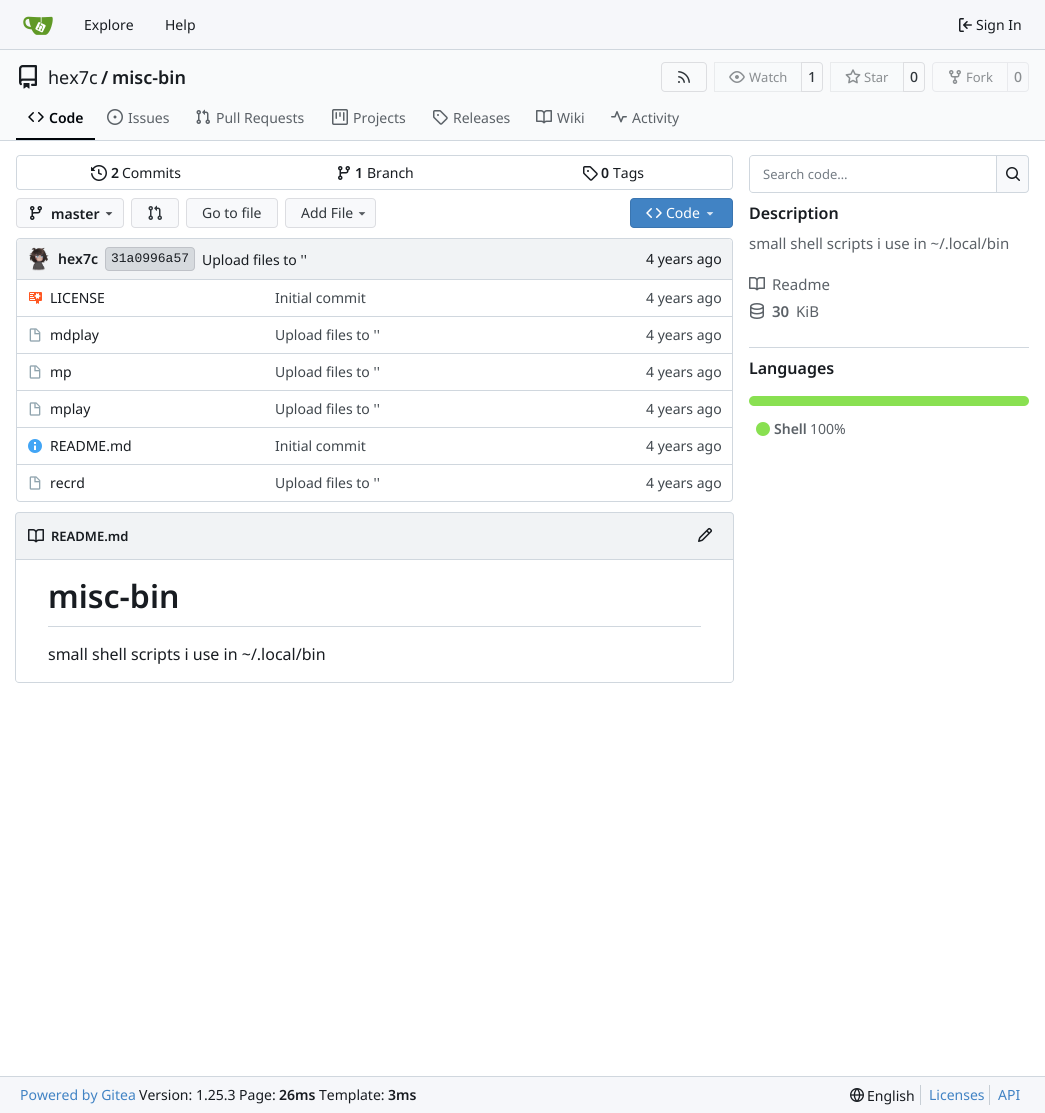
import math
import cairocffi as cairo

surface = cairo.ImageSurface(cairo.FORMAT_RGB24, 1045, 1113)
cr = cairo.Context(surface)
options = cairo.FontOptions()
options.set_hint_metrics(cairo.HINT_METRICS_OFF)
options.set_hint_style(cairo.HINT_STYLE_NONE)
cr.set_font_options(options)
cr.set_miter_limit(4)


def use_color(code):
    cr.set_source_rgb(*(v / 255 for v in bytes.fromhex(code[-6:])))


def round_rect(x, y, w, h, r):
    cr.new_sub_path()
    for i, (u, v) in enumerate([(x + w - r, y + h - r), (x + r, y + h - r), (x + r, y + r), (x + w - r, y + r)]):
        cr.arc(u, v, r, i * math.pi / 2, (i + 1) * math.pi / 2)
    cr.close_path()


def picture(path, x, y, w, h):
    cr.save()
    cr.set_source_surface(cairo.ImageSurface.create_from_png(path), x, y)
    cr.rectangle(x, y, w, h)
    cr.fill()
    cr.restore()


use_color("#ffffff")
cr.paint()
use_color("#f6f7fa")
cr.rectangle(0, 0, 1045, 49)
cr.fill()
use_color("#d0d7de")
cr.rectangle(0, 49, 1045, 1)
cr.fill()
picture("img1.png", 23, 16, 30, 19)
cr.select_font_face("Noto Sans")
cr.set_font_size(14)
use_color("#181c21")
cr.move_to(84, 30)
cr.show_text("Explore")
cr.move_to(165, 30)
cr.show_text("Help")
picture("img2.png", 959, 18, 13, 14)
cr.move_to(976, 30)
cr.show_text("Sign In")
use_color("#f9fafb")
cr.rectangle(0, 50, 1045, 90)
cr.fill()
picture("img3.png", 19, 65, 18, 24)
cr.set_font_size(18)
use_color("#181c21")
cr.move_to(48, 84)
cr.show_text("hex7c")
cr.select_font_face("Noto Sans SemiBold")
cr.move_to(101, 84)
cr.show_text("/")
cr.move_to(112, 84)
cr.show_text("misc-bin")
round_rect(661.5, 62.5, 45, 29, 3.5)
use_color("#dddee1")
cr.set_line_width(1)
cr.stroke()
picture("img4.png", 678, 71, 12, 12)
cr.new_path()
cr.move_to(801.5, 62.5)
cr.line_to(819, 62.5)
cr.curve_to(821, 62.5, 822.5, 64, 822.5, 66)
cr.line_to(822.5, 88)
cr.curve_to(822.5, 90, 821, 91.5, 819, 91.5)
cr.line_to(801.5, 91.5)
cr.close_path()
cr.stroke()
cr.set_source_rgba(0.973, 0.976, 0.984, 0.55)
cr.new_path()
cr.move_to(718, 62)
cr.line_to(802, 62)
cr.line_to(802, 92)
cr.line_to(718, 92)
cr.curve_to(716, 92, 714, 90, 714, 88)
cr.line_to(714, 66)
cr.curve_to(714, 64, 716, 62, 718, 62)
cr.close_path()
cr.fill()
cr.rectangle(714.5, 62.5, 87, 29)
cr.set_source_rgba(0, 0, 0.09, 0.06)
cr.stroke()
picture("img5.png", 729, 71, 16, 12)
cr.select_font_face("Noto Sans")
cr.set_font_size(13)
use_color("#8a8e91")
cr.move_to(749, 82)
cr.show_text("Watch")
cr.select_font_face("Noto Sans Medium")
cr.set_font_size(14)
use_color("#30363b")
cr.move_to(808, 82)
cr.show_text("1")
cr.new_path()
cr.move_to(903.5, 62.5)
cr.line_to(921, 62.5)
cr.curve_to(923, 62.5, 924.5, 64, 924.5, 66)
cr.line_to(924.5, 88)
cr.curve_to(924.5, 90, 923, 91.5, 921, 91.5)
cr.line_to(903.5, 91.5)
cr.close_path()
use_color("#dddee1")
cr.stroke()
cr.set_source_rgba(0.973, 0.976, 0.984, 0.55)
cr.new_path()
cr.move_to(834, 62)
cr.line_to(904, 62)
cr.line_to(904, 92)
cr.line_to(834, 92)
cr.curve_to(832, 92, 830, 90, 830, 88)
cr.line_to(830, 66)
cr.curve_to(830, 64, 832, 62, 834, 62)
cr.close_path()
cr.fill()
cr.rectangle(830.5, 62.5, 73, 29)
cr.set_source_rgba(0, 0, 0.09, 0.06)
cr.stroke()
picture("img6.png", 845, 69, 16, 15)
cr.select_font_face("Noto Sans")
cr.set_font_size(13)
use_color("#8a8e91")
cr.move_to(864, 82)
cr.show_text("Star")
cr.select_font_face("Noto Sans Medium")
cr.set_font_size(14)
use_color("#30363b")
cr.move_to(910, 82)
cr.show_text("0")
cr.new_path()
cr.move_to(936, 62.5)
cr.line_to(1007.5, 62.5)
cr.line_to(1007.5, 91.5)
cr.line_to(936, 91.5)
cr.curve_to(934, 91.5, 932.5, 90, 932.5, 88)
cr.line_to(932.5, 66)
cr.curve_to(932.5, 64, 934, 62.5, 936, 62.5)
cr.close_path()
use_color("#e9eaed")
cr.stroke()
picture("img7.png", 949, 70, 12, 14)
cr.select_font_face("Noto Sans")
cr.set_font_size(13)
use_color("#8a8e91")
cr.move_to(966, 82)
cr.show_text("Fork")
use_color("#f8f9fb")
cr.new_path()
cr.move_to(1007.5, 62.5)
cr.line_to(1025, 62.5)
cr.curve_to(1027, 62.5, 1028.5, 64, 1028.5, 66)
cr.line_to(1028.5, 88)
cr.curve_to(1028.5, 90, 1027, 91.5, 1025, 91.5)
cr.line_to(1007.5, 91.5)
cr.close_path()
cr.fill_preserve()
use_color("#e9eaed")
cr.stroke()
cr.select_font_face("Noto Sans Medium")
cr.set_font_size(14)
use_color("#8a8e91")
cr.move_to(1014, 82)
cr.show_text("0")
use_color("#01050a")
cr.rectangle(16, 138, 79, 2)
cr.fill()
picture("img8.png", 28, 112, 16, 10)
cr.select_font_face("Noto Sans SemiBold")
cr.move_to(49, 123)
cr.show_text("Code")
picture("img9.png", 107, 109, 16, 16)
cr.select_font_face("Noto Sans")
use_color("#5b6167")
cr.move_to(128, 123)
cr.show_text("Issues")
picture("img10.png", 196, 109, 14, 15)
cr.move_to(216, 123)
cr.show_text("Pull Requests")
picture("img11.png", 332, 109, 16, 16)
cr.move_to(353, 123)
cr.show_text("Projects")
picture("img12.png", 433, 110, 15, 15)
cr.move_to(453, 123)
cr.show_text("Releases")
picture("img13.png", 536, 110, 16, 14)
cr.move_to(557, 123)
cr.show_text("Wiki")
picture("img14.png", 611, 111, 16, 12)
cr.move_to(632, 123)
cr.show_text("Activity")
use_color("#d0d7de")
cr.rectangle(0, 140, 1045, 1)
cr.fill()
round_rect(16.5, 155.5, 716, 34, 3.5)
cr.stroke()
use_color("#ffffff")
round_rect(17, 156, 715, 33, 4)
cr.fill()
picture("img15.png", 91, 165, 16, 16)
cr.select_font_face("Noto Sans SemiBold")
use_color("#181c21")
cr.move_to(111, 178)
cr.show_text("2")
cr.select_font_face("Noto Sans")
cr.move_to(122, 178)
cr.show_text("Commits")
picture("img16.png", 338, 166, 12, 14)
cr.select_font_face("Noto Sans SemiBold")
cr.move_to(355, 178)
cr.show_text("1")
cr.select_font_face("Noto Sans")
cr.move_to(367, 178)
cr.show_text("Branch")
picture("img17.png", 583, 166, 15, 15)
cr.select_font_face("Noto Sans SemiBold")
cr.move_to(601, 178)
cr.show_text("0")
cr.select_font_face("Noto Sans")
cr.move_to(613, 178)
cr.show_text("Tags")
use_color("#f8f9fb")
round_rect(16.5, 198.5, 107, 29, 3.5)
cr.fill_preserve()
use_color("#dcdde1")
cr.stroke()
picture("img18.png", 30, 206, 12, 14)
cr.select_font_face("Noto Sans SemiBold")
use_color("#181c21")
cr.move_to(51, 219)
cr.show_text("master")
picture("img19.png", 105, 212, 8, 4)
use_color("#f8f9fb")
round_rect(131.5, 198.5, 47, 29, 3.5)
cr.fill_preserve()
use_color("#dcdde1")
cr.stroke()
picture("img20.png", 148, 205, 14, 15)
use_color("#f8f9fb")
round_rect(186.5, 198.5, 91, 29, 3.5)
cr.fill_preserve()
use_color("#dcdde1")
cr.stroke()
cr.select_font_face("Noto Sans")
use_color("#30363b")
cr.move_to(202, 218)
cr.show_text("Go to file")
use_color("#f8f9fb")
round_rect(285.5, 198.5, 90, 29, 3.5)
cr.fill_preserve()
use_color("#dcdde1")
cr.stroke()
use_color("#30363b")
cr.move_to(301, 218)
cr.show_text("Add File")
picture("img21.png", 358, 212, 8, 4)
use_color("#4183c4")
round_rect(630, 198, 103, 30, 4)
cr.fill()
round_rect(630.5, 198.5, 102, 29, 3.5)
cr.set_source_rgba(0, 0, 0.09, 0.11)
cr.stroke()
picture("img22.png", 646, 208, 16, 10)
use_color("#ffffff")
cr.move_to(666, 218)
cr.show_text("Code")
picture("img23.png", 706, 212, 8, 4)
round_rect(16.5, 238.5, 716, 263, 3.5)
use_color("#d0d7de")
cr.stroke()
use_color("#f1f3f5")
cr.new_path()
cr.move_to(21, 239)
cr.line_to(728, 239)
cr.curve_to(730, 239, 732, 241, 732, 243)
cr.line_to(732, 279)
cr.line_to(17, 279)
cr.line_to(17, 243)
cr.curve_to(17, 241, 19, 239, 21, 239)
cr.close_path()
cr.fill()
picture("img24.png", 29, 247, 20, 24)
cr.select_font_face("Noto Sans SemiBold")
use_color("#181c21")
cr.move_to(58, 264)
cr.show_text("hex7c")
use_color("#d6dade")
round_rect(105, 247, 90, 24, 4)
cr.fill()
round_rect(105.5, 247.5, 89, 23, 3.5)
cr.set_source_rgba(0, 0, 0.09, 0.11)
cr.stroke()
cr.select_font_face("Liberation Mono")
cr.set_font_size(13)
use_color("#181c21")
cr.move_to(111, 262)
cr.show_text("31a0996a57")
cr.select_font_face("Noto Sans")
cr.set_font_size(14)
cr.move_to(202, 265)
cr.show_text("Upload files to ''")
cr.move_to(646, 264)
cr.show_text("4 years ago")
use_color("#d0d7de")
cr.rectangle(17, 279, 619, 1)
cr.fill()
picture("img25.png", 29, 292, 13, 12)
use_color("#181c21")
cr.move_to(50, 303)
cr.show_text("LICENSE")
use_color("#40474d")
cr.move_to(275, 303)
cr.show_text("Initial commit")
use_color("#d0d7de")
cr.rectangle(636, 279, 96, 1)
cr.fill()
use_color("#40474d")
cr.move_to(646, 303)
cr.show_text("4 years ago")
use_color("#d0d7de")
cr.rectangle(17, 316, 619, 1)
cr.fill()
picture("img26.png", 29, 328, 12, 14)
use_color("#181c21")
cr.move_to(50, 340)
cr.show_text("mdplay")
use_color("#40474d")
cr.move_to(275, 340)
cr.show_text("Upload files to ''")
use_color("#d0d7de")
cr.rectangle(636, 316, 96, 1)
cr.fill()
use_color("#40474d")
cr.move_to(646, 340)
cr.show_text("4 years ago")
use_color("#d0d7de")
cr.rectangle(17, 353, 619, 1)
cr.fill()
picture("img26.png", 29, 365, 12, 14)
use_color("#181c21")
cr.move_to(50, 377)
cr.show_text("mp")
use_color("#40474d")
cr.move_to(275, 377)
cr.show_text("Upload files to ''")
use_color("#d0d7de")
cr.rectangle(636, 353, 96, 1)
cr.fill()
use_color("#40474d")
cr.move_to(646, 377)
cr.show_text("4 years ago")
use_color("#d0d7de")
cr.rectangle(17, 390, 619, 1)
cr.fill()
picture("img26.png", 29, 402, 12, 14)
use_color("#181c21")
cr.move_to(50, 414)
cr.show_text("mplay")
use_color("#40474d")
cr.move_to(275, 414)
cr.show_text("Upload files to ''")
use_color("#d0d7de")
cr.rectangle(636, 390, 96, 1)
cr.fill()
use_color("#40474d")
cr.move_to(646, 414)
cr.show_text("4 years ago")
use_color("#d0d7de")
cr.rectangle(17, 427, 619, 1)
cr.fill()
picture("img27.png", 28, 439, 14, 14)
use_color("#181c21")
cr.move_to(50, 451)
cr.show_text("README.md")
use_color("#40474d")
cr.move_to(275, 451)
cr.show_text("Initial commit")
use_color("#d0d7de")
cr.rectangle(636, 427, 96, 1)
cr.fill()
use_color("#40474d")
cr.move_to(646, 451)
cr.show_text("4 years ago")
use_color("#d0d7de")
cr.rectangle(17, 464, 619, 1)
cr.fill()
picture("img26.png", 29, 476, 12, 14)
use_color("#181c21")
cr.move_to(50, 488)
cr.show_text("recrd")
use_color("#40474d")
cr.move_to(275, 488)
cr.show_text("Upload files to ''")
use_color("#d0d7de")
cr.rectangle(636, 464, 96, 1)
cr.fill()
use_color("#40474d")
cr.move_to(646, 488)
cr.show_text("4 years ago")
use_color("#f1f3f5")
cr.new_path()
cr.move_to(19, 512.5)
cr.line_to(730, 512.5)
cr.curve_to(732, 512.5, 733.5, 514, 733.5, 516)
cr.line_to(733.5, 559.5)
cr.line_to(15.5, 559.5)
cr.line_to(15.5, 516)
cr.curve_to(15.5, 514, 17, 512.5, 19, 512.5)
cr.close_path()
cr.fill_preserve()
use_color("#d0d7de")
cr.stroke()
picture("img28.png", 28, 529, 16, 14)
cr.select_font_face("Noto Sans SemiBold")
cr.set_font_size(13)
use_color("#181c21")
cr.move_to(51, 541)
cr.show_text("README.md")
picture("img29.png", 698, 527, 15, 15)
use_color("#d0d7de")
cr.set_fill_rule(cairo.FILL_RULE_EVEN_ODD)
cr.new_path()
cr.move_to(15, 560)
cr.line_to(734, 560)
cr.line_to(734, 679)
cr.curve_to(734, 681, 732, 683, 730, 683)
cr.line_to(19, 683)
cr.curve_to(17, 683, 15, 681, 15, 679)
cr.close_path()
cr.move_to(16, 560)
cr.line_to(733, 560)
cr.line_to(733, 679)
cr.curve_to(733, 681, 732, 682, 730, 682)
cr.line_to(19, 682)
cr.curve_to(17, 682, 16, 681, 16, 679)
cr.close_path()
cr.fill()
cr.rectangle(48, 626, 653, 1)
cr.fill()
cr.set_font_size(32)
use_color("#181c21")
cr.move_to(48, 608)
cr.show_text("misc-bin")
cr.select_font_face("Noto Sans")
cr.set_font_size(16)
cr.move_to(48, 660)
cr.show_text("small shell scripts i use in ~/.local/bin")
use_color("#d0d7de")
cr.new_path()
cr.move_to(753, 155)
cr.line_to(996, 155)
cr.line_to(996, 193)
cr.line_to(753, 193)
cr.curve_to(751, 193, 749, 191, 749, 189)
cr.line_to(749, 159)
cr.curve_to(749, 157, 751, 155, 753, 155)
cr.close_path()
cr.move_to(753, 156)
cr.line_to(996, 156)
cr.line_to(996, 192)
cr.line_to(753, 192)
cr.curve_to(751, 192, 750, 191, 750, 189)
cr.line_to(750, 159)
cr.curve_to(750, 157, 751, 156, 753, 156)
cr.close_path()
cr.fill()
cr.set_font_size(13)
use_color("#747c84")
cr.move_to(763, 179)
cr.show_text("Search code…")
use_color("#f8f9fb")
cr.new_path()
cr.move_to(996.5, 155.5)
cr.line_to(1025, 155.5)
cr.curve_to(1027, 155.5, 1028.5, 157, 1028.5, 159)
cr.line_to(1028.5, 189)
cr.curve_to(1028.5, 191, 1027, 192.5, 1025, 192.5)
cr.line_to(996.5, 192.5)
cr.close_path()
cr.fill_preserve()
use_color("#d0d7de")
cr.stroke()
picture("img30.png", 1006, 167, 14, 14)
cr.select_font_face("Noto Sans SemiBold")
cr.set_font_size(16)
use_color("#181c21")
cr.move_to(749, 219)
cr.show_text("Description")
cr.select_font_face("Noto Sans")
cr.set_font_size(15)
use_color("#5b6167")
cr.move_to(749, 249)
cr.show_text("small shell scripts i use in ~/.local/bin")
picture("img31.png", 749, 277, 16, 14)
cr.move_to(772, 290)
cr.show_text("Readme")
picture("img32.png", 750, 303, 14, 16)
cr.select_font_face("Noto Sans SemiBold")
cr.move_to(772, 317)
cr.show_text("30")
cr.select_font_face("Noto Sans")
cr.move_to(796, 317)
cr.show_text("KiB")
use_color("#d0d7de")
cr.rectangle(749, 347, 280, 1)
cr.fill()
cr.select_font_face("Noto Sans SemiBold")
cr.set_font_size(16)
use_color("#181c21")
cr.move_to(749, 374)
cr.show_text("Languages")
use_color("#89e051")
round_rect(749, 396, 280, 10, 5)
cr.fill()
cr.arc(763, 429, 7, 0, 2 * math.pi)
cr.fill()
cr.set_font_size(14)
use_color("#5b6167")
cr.move_to(774, 434)
cr.show_text("Shell")
cr.select_font_face("Noto Sans")
cr.move_to(810, 434)
cr.show_text("100%")
use_color("#f6f7fa")
cr.rectangle(0, 1077, 1045, 36)
cr.fill()
use_color("#d0d7de")
cr.rectangle(0, 1076, 1045, 1)
cr.fill()
use_color("#4183c4")
cr.move_to(20, 1100)
cr.show_text("Powered by Gitea")
use_color("#181c21")
cr.move_to(139, 1100)
cr.show_text("Version: 1.25.3 Page:")
cr.select_font_face("Noto Sans SemiBold")
cr.move_to(279, 1100)
cr.show_text("26ms")
cr.select_font_face("Noto Sans")
cr.move_to(319, 1100)
cr.show_text("Template:")
cr.select_font_face("Noto Sans SemiBold")
cr.move_to(388, 1100)
cr.show_text("3ms")
picture("img33.png", 850, 1088, 14, 14)
cr.select_font_face("Noto Sans")
cr.move_to(867, 1101)
cr.show_text("English")
use_color("#c7ced5")
cr.rectangle(920, 1085, 1, 20)
cr.fill()
use_color("#4183c4")
cr.move_to(929, 1100)
cr.show_text("Licenses")
use_color("#c7ced5")
cr.rectangle(989, 1085, 1, 20)
cr.fill()
use_color("#4183c4")
cr.move_to(998, 1100)
cr.show_text("API")
surface.write_to_png("result.png")
